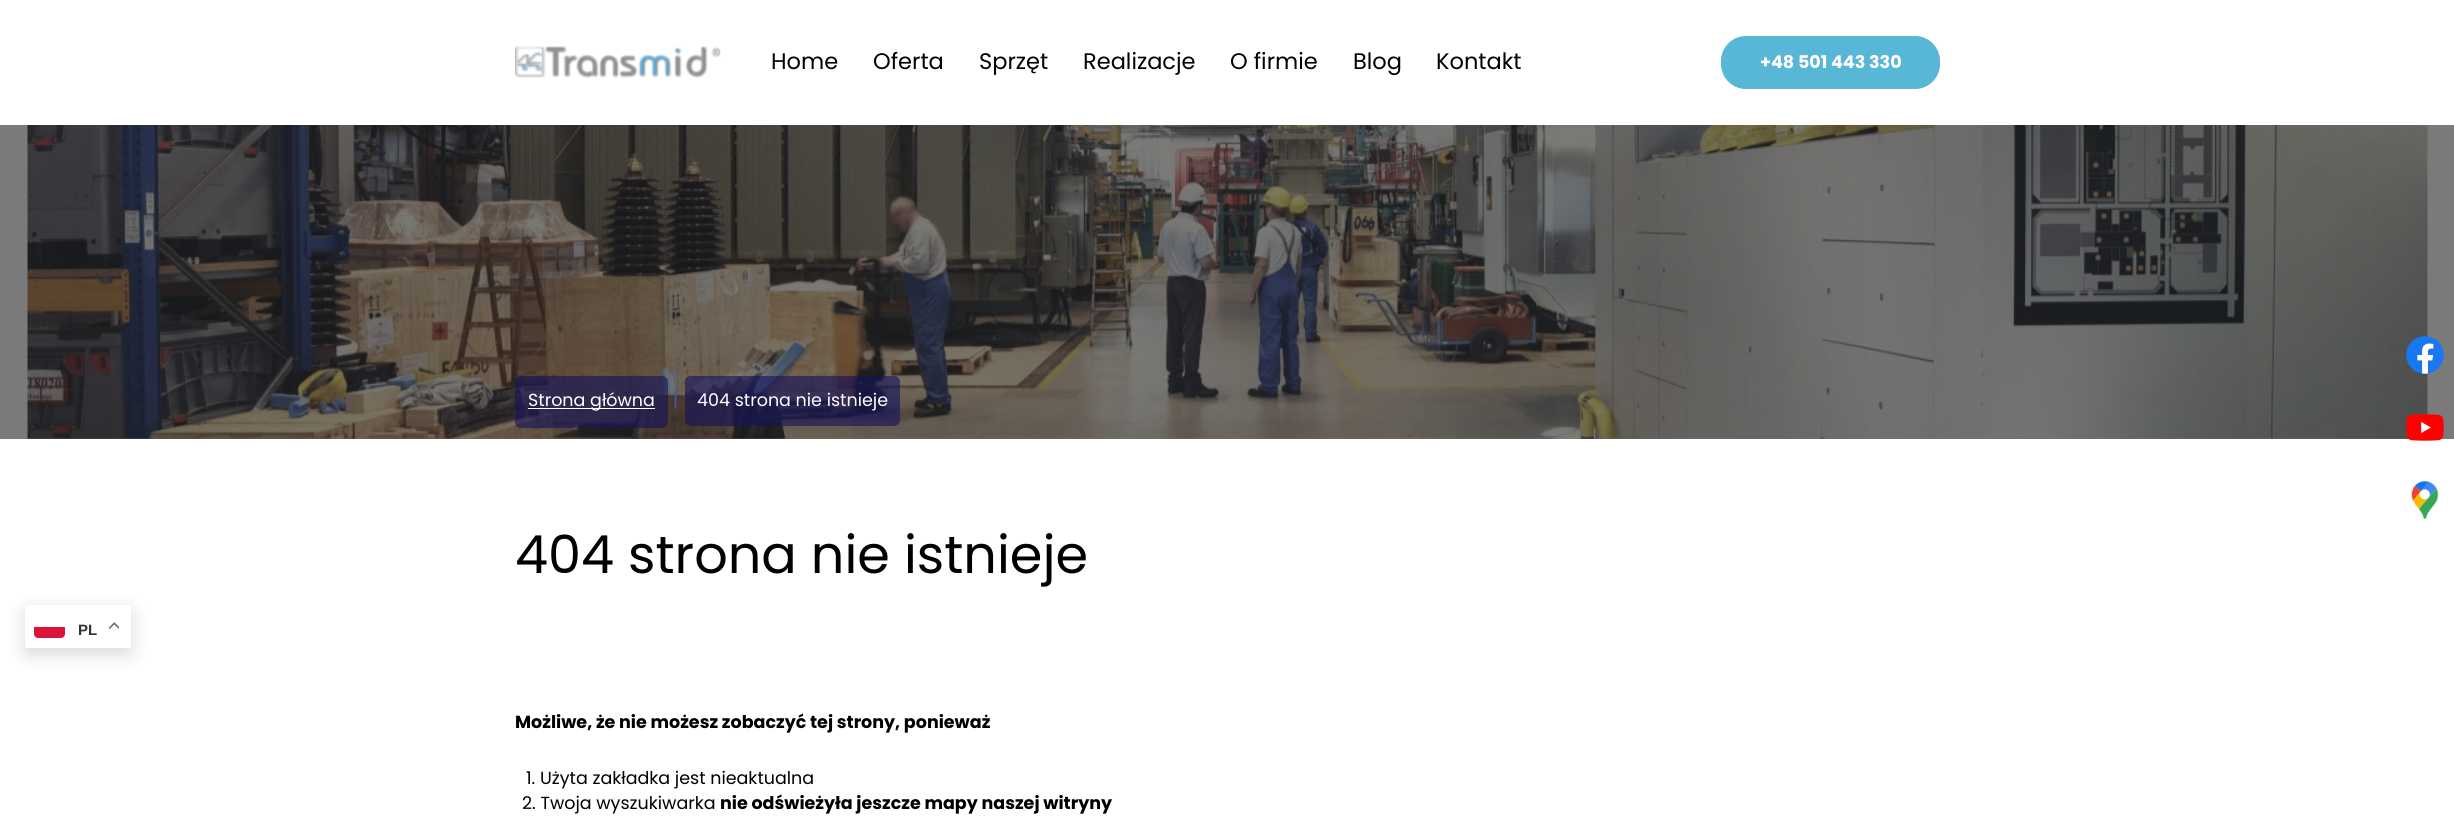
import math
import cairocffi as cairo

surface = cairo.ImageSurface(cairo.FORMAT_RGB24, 2454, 829)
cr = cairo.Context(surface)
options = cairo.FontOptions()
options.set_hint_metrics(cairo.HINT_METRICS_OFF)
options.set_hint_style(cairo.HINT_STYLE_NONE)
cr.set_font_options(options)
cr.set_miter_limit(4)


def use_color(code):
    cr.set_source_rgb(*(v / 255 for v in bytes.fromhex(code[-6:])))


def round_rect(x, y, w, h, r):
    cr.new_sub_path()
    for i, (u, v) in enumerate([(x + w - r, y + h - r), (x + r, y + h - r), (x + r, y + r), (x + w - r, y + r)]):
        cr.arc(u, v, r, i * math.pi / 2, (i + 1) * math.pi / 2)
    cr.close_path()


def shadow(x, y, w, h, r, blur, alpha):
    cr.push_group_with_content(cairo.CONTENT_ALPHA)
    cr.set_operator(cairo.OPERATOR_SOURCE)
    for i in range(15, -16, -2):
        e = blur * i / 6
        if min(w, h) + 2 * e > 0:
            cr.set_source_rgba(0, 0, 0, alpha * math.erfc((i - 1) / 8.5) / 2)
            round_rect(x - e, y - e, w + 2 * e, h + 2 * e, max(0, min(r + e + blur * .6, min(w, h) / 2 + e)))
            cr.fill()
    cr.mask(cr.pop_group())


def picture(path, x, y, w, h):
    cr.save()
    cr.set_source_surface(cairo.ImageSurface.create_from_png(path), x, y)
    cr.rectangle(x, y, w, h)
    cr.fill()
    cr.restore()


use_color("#ffffff")
cr.paint()
use_color("#7a7a7a")
cr.rectangle(0, 125, 2454, 314)
cr.fill()
picture("img1.png", 515, 46, 206, 32)
cr.select_font_face("Poppins")
cr.set_font_size(22.5)
use_color("#000000")
cr.move_to(771, 69)
cr.show_text("Home")
cr.move_to(873, 69)
cr.show_text("Oferta")
cr.move_to(979, 69)
cr.show_text("Sprzęt")
cr.move_to(1083, 69)
cr.show_text("Realizacje")
cr.move_to(1230, 69)
cr.show_text("O firmie")
cr.move_to(1353, 69)
cr.show_text("Blog")
cr.move_to(1436, 69)
cr.show_text("Kontakt")
use_color("#58b7d6")
round_rect(1721.5, 36.5, 218, 52, 24.5)
cr.fill_preserve()
cr.set_line_width(1)
cr.stroke()
cr.select_font_face("Poppins", cairo.FONT_SLANT_NORMAL, cairo.FONT_WEIGHT_BOLD)
cr.set_font_size(17.5)
use_color("#ffffff")
cr.move_to(1760, 68)
cr.show_text("+48 501 443 330")
picture("img6.png", 27, 125, 2401, 314)
picture("img2.png", 2406, 336, 38, 38)
picture("img3.png", 2406, 414, 38, 27)
picture("img4.png", 2411, 481, 28, 38)
use_color("#000000")
shadow(25, 611, 106, 43, 2.5, 9.5, 0.15)
use_color("#ffffff")
round_rect(25, 605, 106, 43, 2.5)
cr.fill()
use_color("#dc143c")
cr.new_path()
cr.move_to(34, 627)
cr.line_to(65, 627)
cr.line_to(65, 634)
cr.curve_to(65, 636, 63, 638, 61, 638)
cr.line_to(38, 638)
cr.curve_to(36, 638, 34, 636, 34, 634)
cr.close_path()
cr.fill()
cr.select_font_face("Liberation Sans", cairo.FONT_SLANT_NORMAL, cairo.FONT_WEIGHT_BOLD)
cr.set_font_size(15)
use_color("#333333")
cr.move_to(78, 635)
cr.show_text("PL")
picture("img5.png", 108, 622, 11, 7)
cr.set_source_rgba(0.075, 0.067, 0.357, 0.6)
round_rect(515, 376, 153, 52, 6)
cr.fill()
use_color("#ffffff")
cr.rectangle(528, 408, 127, 1)
cr.fill()
cr.select_font_face("Poppins")
cr.set_font_size(17.5)
cr.move_to(528, 406)
cr.show_text("Strona główna")
use_color("#5150b3")
cr.move_to(673, 406)
cr.show_text("|")
cr.set_source_rgba(0.075, 0.067, 0.357, 0.6)
round_rect(685, 376, 215, 50, 6)
cr.fill()
use_color("#ffffff")
cr.move_to(697, 406)
cr.show_text("404 strona nie istnieje")
cr.set_font_size(52.5)
use_color("#000000")
cr.move_to(515, 573)
cr.show_text("404 strona nie istnieje")
cr.select_font_face("Poppins", cairo.FONT_SLANT_NORMAL, cairo.FONT_WEIGHT_BOLD)
cr.set_font_size(17.5)
cr.move_to(515, 728)
cr.show_text("Możliwe, że nie możesz zobaczyć tej strony, ponieważ")
cr.select_font_face("Poppins")
cr.move_to(526, 784)
cr.show_text("1. Użyta zakładka jest nieaktualna")
cr.move_to(522, 809)
cr.show_text("2. Twoja wyszukiwarka")
cr.select_font_face("Poppins", cairo.FONT_SLANT_NORMAL, cairo.FONT_WEIGHT_BOLD)
cr.move_to(720, 809)
cr.show_text("nie odświeżyła jeszcze mapy naszej witryny")
surface.write_to_png("result.png")
